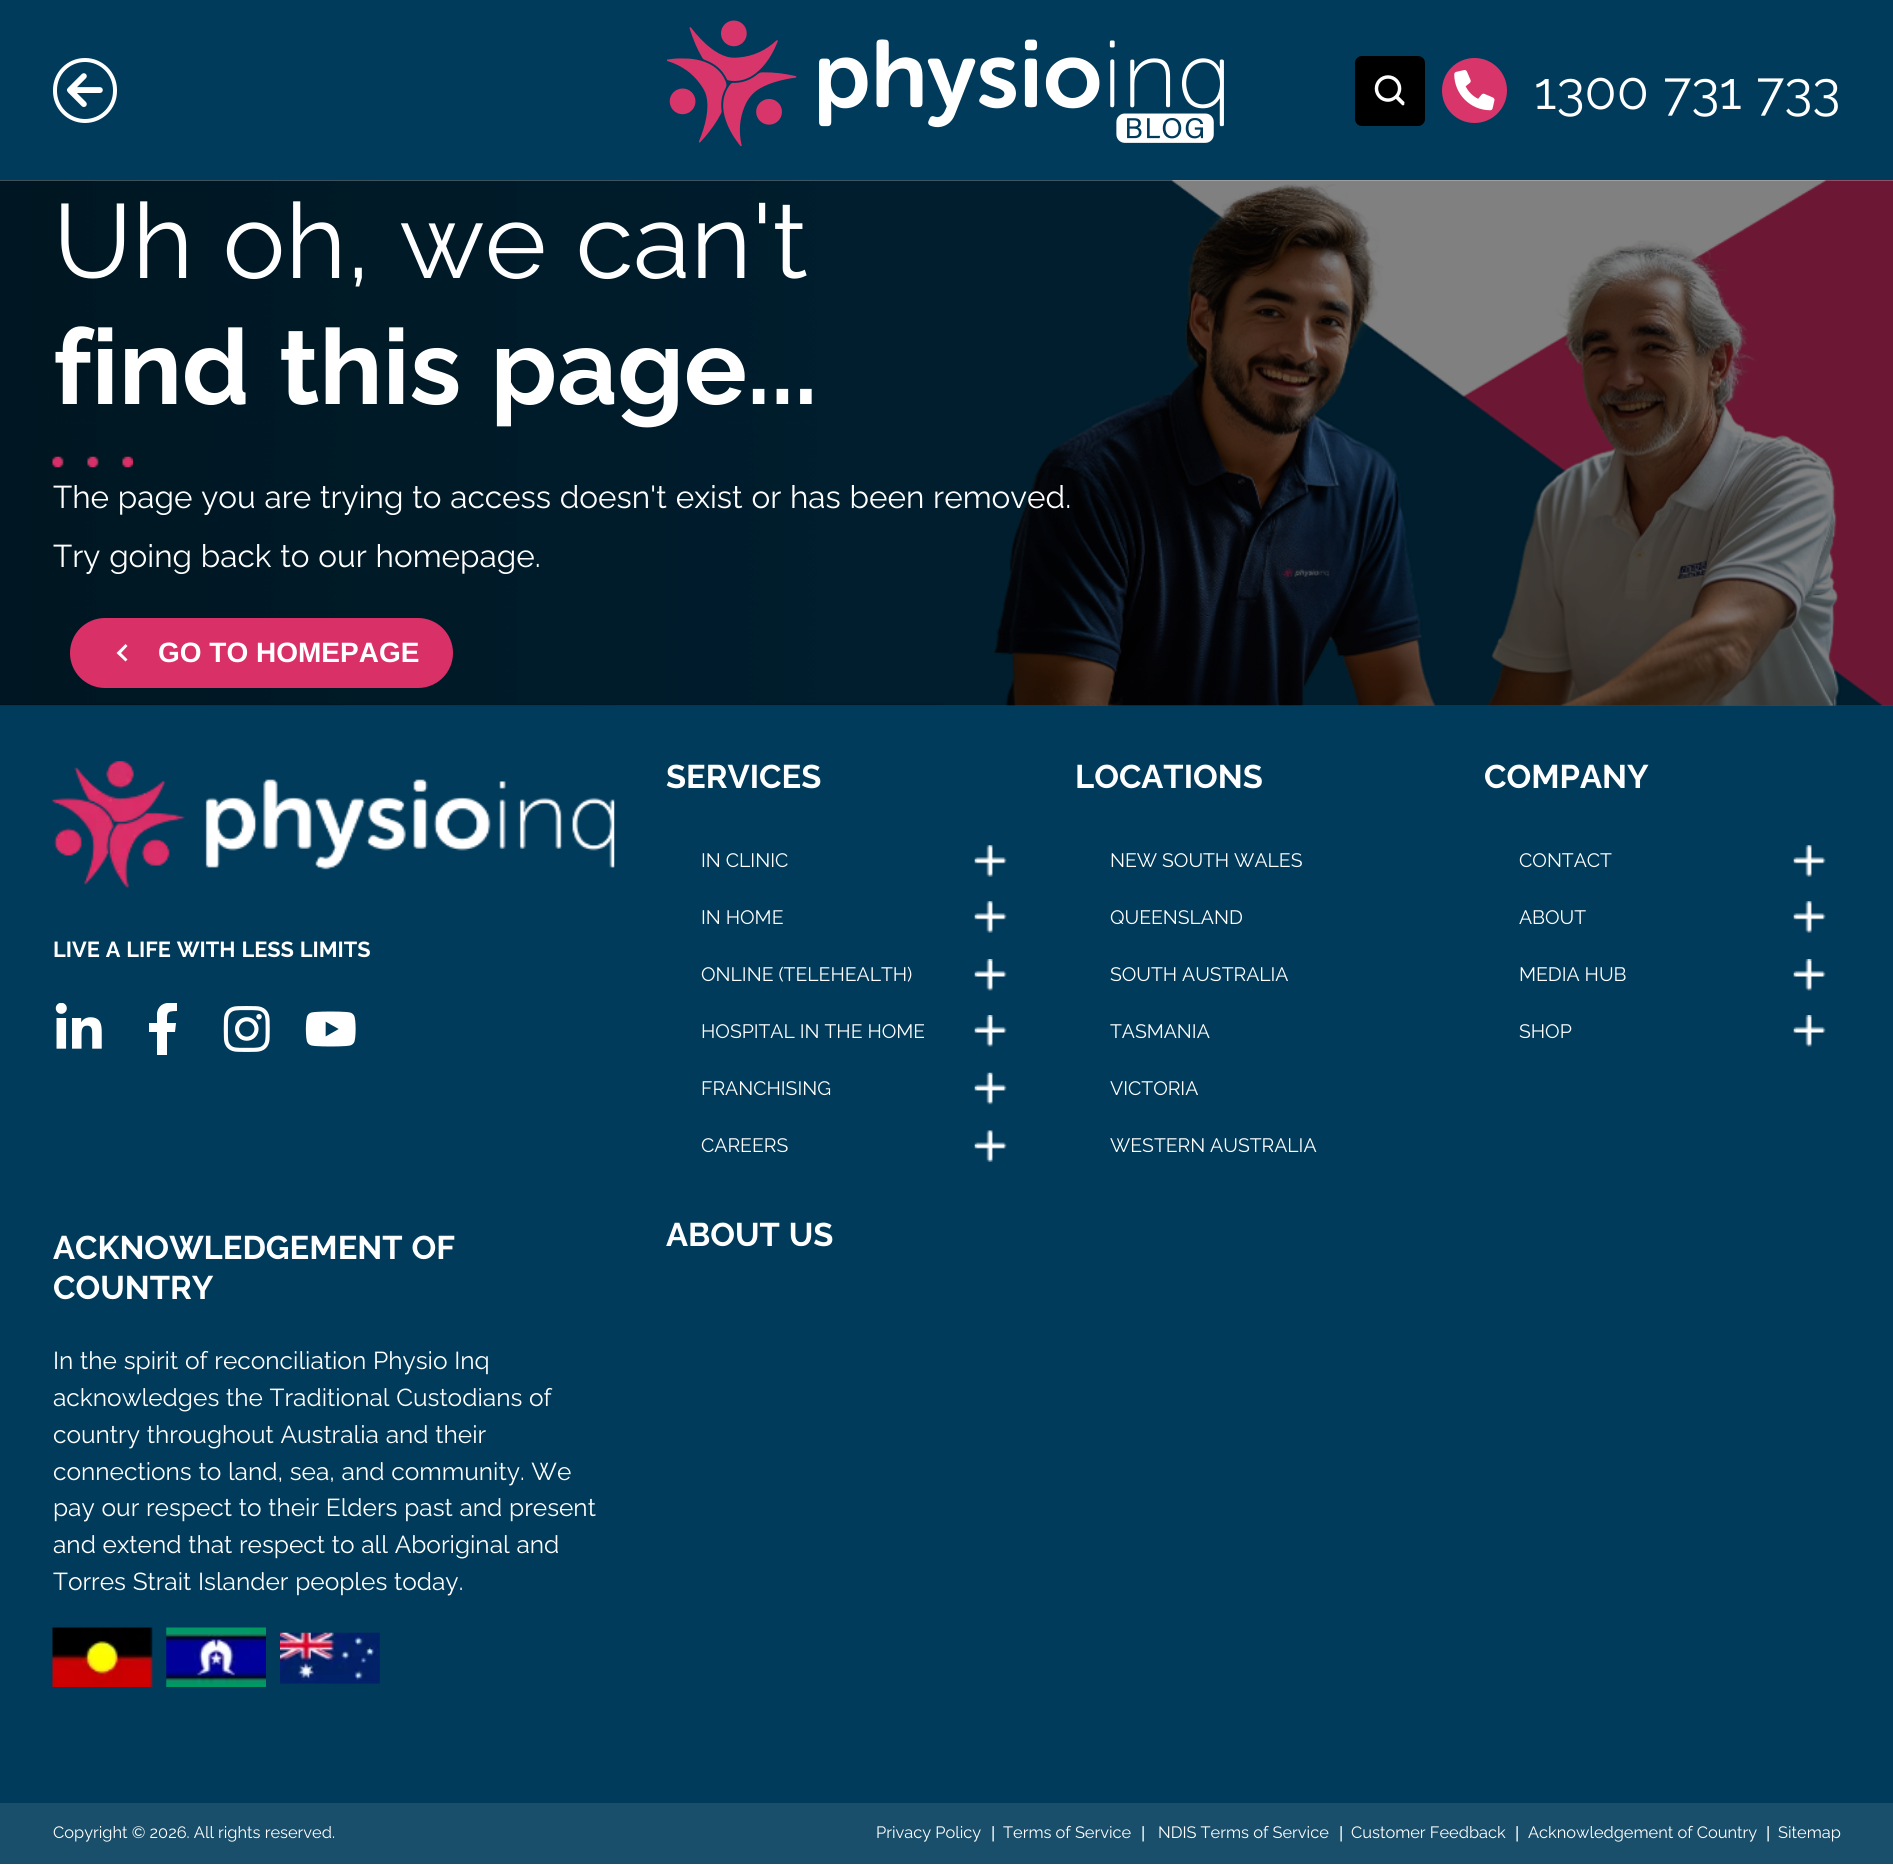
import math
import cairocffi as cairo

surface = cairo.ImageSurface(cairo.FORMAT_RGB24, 1893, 1866)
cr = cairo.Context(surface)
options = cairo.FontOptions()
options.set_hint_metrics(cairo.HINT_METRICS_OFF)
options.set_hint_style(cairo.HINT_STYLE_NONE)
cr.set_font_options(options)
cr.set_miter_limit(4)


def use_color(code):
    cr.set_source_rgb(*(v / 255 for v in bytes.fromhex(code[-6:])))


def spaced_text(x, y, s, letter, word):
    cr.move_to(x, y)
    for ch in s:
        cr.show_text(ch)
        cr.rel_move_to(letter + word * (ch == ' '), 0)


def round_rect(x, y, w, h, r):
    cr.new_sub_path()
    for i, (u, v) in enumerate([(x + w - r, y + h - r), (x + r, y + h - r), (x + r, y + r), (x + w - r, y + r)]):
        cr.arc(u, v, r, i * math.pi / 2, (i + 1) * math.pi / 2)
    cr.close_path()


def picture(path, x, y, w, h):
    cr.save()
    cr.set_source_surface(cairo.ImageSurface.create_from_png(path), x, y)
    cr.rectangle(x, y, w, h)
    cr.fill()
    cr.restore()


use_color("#ffffff")
cr.paint()
use_color("#003b5b")
cr.rectangle(0, 0, 1893, 180)
cr.fill()
round_rect(55, 60, 60, 61, 30)
use_color("#ffffff")
cr.set_line_width(4)
cr.stroke()
picture("img1.png", 67, 73, 36, 34)
picture("img2.png", 667, 20, 557, 127)
use_color("#000000")
round_rect(1355, 56, 70, 70, 7)
cr.fill()
picture("img3.png", 1374, 75, 31, 31)
use_color("#d8366b")
cr.arc(1474.5, 90.5, 32.5, 0, 2 * math.pi)
cr.fill()
picture("img4.png", 1454, 70, 41, 41)
cr.select_font_face("Raleway")
cr.set_font_size(52.5)
use_color("#ffffff")
spaced_text(1534, 109, "1300 731 733", 0, 1)
use_color("#003b5b")
cr.rectangle(0, 705, 1893, 1098)
cr.fill()
picture("img5.png", 0, 180, 1893, 526)
picture("img6.png", 52, 456, 81, 12)
cr.set_font_size(105)
use_color("#ffffff")
spaced_text(53, 278, "Uh oh, we can't", 0, 2.5)
cr.select_font_face("Raleway", cairo.FONT_SLANT_NORMAL, cairo.FONT_WEIGHT_BOLD)
spaced_text(53, 404, "find this page...", 0, 4)
cr.select_font_face("Raleway")
cr.set_font_size(31.5)
spaced_text(53, 508, "The page you are trying to access doesn't exist or has been removed.", 0, 0.75)
spaced_text(53, 567, "Try going back to our homepage.", 0, 0.75)
use_color("#d93068")
round_rect(70, 618, 383, 70, 35)
cr.fill()
use_color("#ffffff")
cr.new_path()
cr.move_to(127.5, 659.5)
cr.line_to(121, 653)
cr.line_to(127.5, 646)
cr.line_to(125.5, 644)
cr.line_to(116.5, 653)
cr.line_to(125.5, 661.5)
cr.close_path()
cr.fill()
cr.select_font_face("Liberation Sans", cairo.FONT_SLANT_NORMAL, cairo.FONT_WEIGHT_BOLD)
cr.set_font_size(28)
cr.move_to(158, 662)
cr.show_text("GO TO HOMEPAGE")
picture("img7.png", 52, 761, 563, 127)
cr.select_font_face("Raleway", cairo.FONT_SLANT_NORMAL, cairo.FONT_WEIGHT_BOLD)
cr.set_font_size(21.75)
spaced_text(53, 957, "LIVE A LIFE WITH LESS LIMITS", 0, 0.75)
picture("img8.png", 55, 1003, 47, 46)
cr.save()
cr.rectangle(137, 1003, 52, 52)
cr.clip()
cr.new_path()
cr.move_to(175, 1032)
cr.line_to(176, 1023)
cr.line_to(167, 1023)
cr.curve_to(167, 1013, 166, 1011, 177, 1011)
cr.line_to(177, 1003)
cr.curve_to(169, 1002, 159, 1002, 157, 1013)
cr.line_to(157, 1023)
cr.line_to(149, 1023)
cr.line_to(149, 1032)
cr.line_to(157, 1032)
cr.line_to(157, 1055)
cr.line_to(167, 1055)
cr.line_to(167, 1032)
cr.close_path()
cr.fill()
cr.restore()
picture("img9.png", 223, 1006, 47, 46)
picture("img10.png", 305, 1011, 51, 36)
cr.set_font_size(32.75)
spaced_text(53, 1259, "ACKNOWLEDGEMENT OF", 0, 1)
cr.move_to(53, 1299)
cr.show_text("COUNTRY")
cr.select_font_face("Raleway")
cr.set_font_size(24.5)
spaced_text(53, 1369, "In the spirit of reconciliation Physio Inq", 0, 0.5)
spaced_text(53, 1406, "acknowledges the Traditional Custodians of", 0, 0.5)
spaced_text(53, 1443, "country throughout Australia and their", 0, 0.5)
spaced_text(53, 1480, "connections to land, sea, and community. We", 0, 0.5)
spaced_text(53, 1516, "pay our respect to their Elders past and present", 0, 0.5)
spaced_text(53, 1553, "and extend that respect to all Aboriginal and", 0, 0.5)
spaced_text(53, 1590, "Torres Strait Islander peoples today.", 0, 0.5)
picture("img11.png", 52, 1627, 101, 60)
picture("img12.png", 166, 1627, 100, 60)
picture("img13.png", 280, 1632, 100, 52)
cr.select_font_face("Raleway", cairo.FONT_SLANT_NORMAL, cairo.FONT_WEIGHT_BOLD)
cr.set_font_size(32.75)
cr.move_to(666, 788)
cr.show_text("SERVICES")
picture("img14.png", 974, 845, 33, 32)
cr.select_font_face("Raleway")
cr.set_font_size(19.4)
cr.move_to(701, 867)
cr.show_text("IN CLINIC")
picture("img14.png", 974, 901, 33, 32)
cr.move_to(701, 924)
cr.show_text("IN HOME")
picture("img15.png", 974, 959, 33, 32)
cr.move_to(701, 981)
cr.show_text("ONLINE (TELEHEALTH)")
picture("img15.png", 974, 1015, 33, 32)
cr.move_to(701, 1038)
cr.show_text("HOSPITAL IN THE HOME")
picture("img16.png", 974, 1072, 33, 33)
cr.move_to(701, 1095)
cr.show_text("FRANCHISING")
picture("img17.png", 974, 1130, 33, 32)
cr.move_to(701, 1152)
cr.show_text("CAREERS")
cr.select_font_face("Raleway", cairo.FONT_SLANT_NORMAL, cairo.FONT_WEIGHT_BOLD)
cr.set_font_size(32.75)
cr.move_to(1075, 788)
cr.show_text("LOCATIONS")
cr.select_font_face("Raleway")
cr.set_font_size(19.4)
cr.move_to(1110, 867)
cr.show_text("NEW SOUTH WALES")
cr.move_to(1110, 924)
cr.show_text("QUEENSLAND")
cr.move_to(1110, 981)
cr.show_text("SOUTH AUSTRALIA")
cr.move_to(1110, 1038)
cr.show_text("TASMANIA")
cr.move_to(1110, 1095)
cr.show_text("VICTORIA")
cr.move_to(1110, 1152)
cr.show_text("WESTERN AUSTRALIA")
cr.select_font_face("Raleway", cairo.FONT_SLANT_NORMAL, cairo.FONT_WEIGHT_BOLD)
cr.set_font_size(32.75)
cr.move_to(1484, 788)
cr.show_text("COMPANY")
picture("img14.png", 1793, 845, 33, 32)
cr.select_font_face("Raleway")
cr.set_font_size(19.4)
cr.move_to(1519, 867)
cr.show_text("CONTACT")
picture("img14.png", 1793, 901, 33, 32)
cr.move_to(1519, 924)
cr.show_text("ABOUT")
picture("img15.png", 1793, 959, 33, 32)
cr.move_to(1519, 981)
cr.show_text("MEDIA HUB")
picture("img15.png", 1793, 1015, 33, 32)
cr.move_to(1519, 1038)
cr.show_text("SHOP")
cr.select_font_face("Raleway", cairo.FONT_SLANT_NORMAL, cairo.FONT_WEIGHT_BOLD)
cr.set_font_size(32.75)
spaced_text(666, 1246, "ABOUT US", 0, 1)
use_color("#1a4f6b")
cr.rectangle(0, 1803, 1893, 61)
cr.fill()
cr.select_font_face("Raleway")
cr.set_font_size(16.4)
use_color("#ffffff")
cr.move_to(53, 1838)
cr.show_text("Copyright © 2026. All rights reserved.")
cr.move_to(876, 1838)
cr.show_text("Privacy Policy")
cr.select_font_face("Liberation Sans")
cr.move_to(991, 1838)
cr.show_text("|")
cr.select_font_face("Raleway")
cr.move_to(1003, 1838)
cr.show_text("Terms of Service")
cr.select_font_face("Liberation Sans")
cr.move_to(1141, 1838)
cr.show_text("|")
cr.select_font_face("Raleway")
cr.move_to(1158, 1838)
cr.show_text("NDIS Terms of Service")
cr.select_font_face("Liberation Sans")
cr.move_to(1339, 1838)
cr.show_text("|")
cr.select_font_face("Raleway")
cr.move_to(1351, 1838)
cr.show_text("Customer Feedback")
cr.select_font_face("Liberation Sans")
cr.move_to(1515, 1838)
cr.show_text("|")
cr.select_font_face("Raleway")
cr.move_to(1528, 1838)
cr.show_text("Acknowledgement of Country")
cr.select_font_face("Liberation Sans")
cr.move_to(1766, 1838)
cr.show_text("|")
cr.select_font_face("Raleway")
cr.move_to(1778, 1838)
cr.show_text("Sitemap")
surface.write_to_png("result.png")
